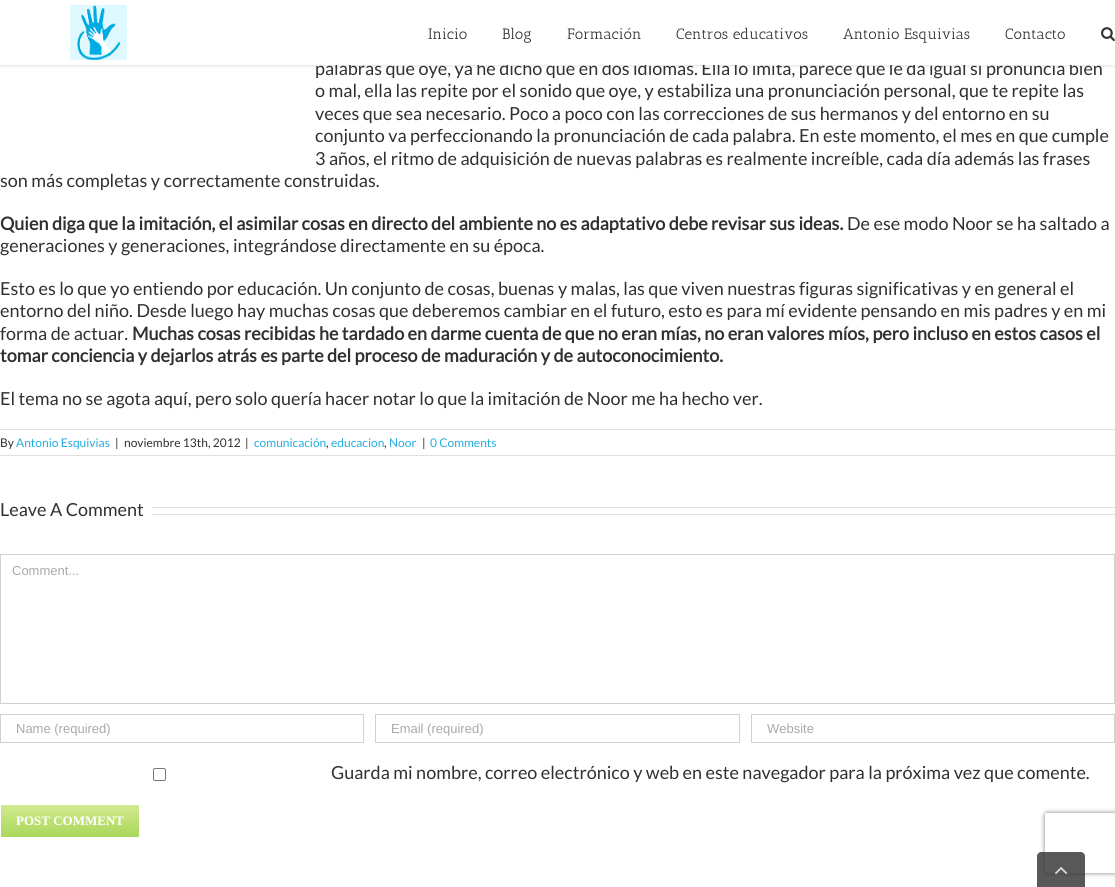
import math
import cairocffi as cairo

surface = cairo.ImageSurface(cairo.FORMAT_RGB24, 1115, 887)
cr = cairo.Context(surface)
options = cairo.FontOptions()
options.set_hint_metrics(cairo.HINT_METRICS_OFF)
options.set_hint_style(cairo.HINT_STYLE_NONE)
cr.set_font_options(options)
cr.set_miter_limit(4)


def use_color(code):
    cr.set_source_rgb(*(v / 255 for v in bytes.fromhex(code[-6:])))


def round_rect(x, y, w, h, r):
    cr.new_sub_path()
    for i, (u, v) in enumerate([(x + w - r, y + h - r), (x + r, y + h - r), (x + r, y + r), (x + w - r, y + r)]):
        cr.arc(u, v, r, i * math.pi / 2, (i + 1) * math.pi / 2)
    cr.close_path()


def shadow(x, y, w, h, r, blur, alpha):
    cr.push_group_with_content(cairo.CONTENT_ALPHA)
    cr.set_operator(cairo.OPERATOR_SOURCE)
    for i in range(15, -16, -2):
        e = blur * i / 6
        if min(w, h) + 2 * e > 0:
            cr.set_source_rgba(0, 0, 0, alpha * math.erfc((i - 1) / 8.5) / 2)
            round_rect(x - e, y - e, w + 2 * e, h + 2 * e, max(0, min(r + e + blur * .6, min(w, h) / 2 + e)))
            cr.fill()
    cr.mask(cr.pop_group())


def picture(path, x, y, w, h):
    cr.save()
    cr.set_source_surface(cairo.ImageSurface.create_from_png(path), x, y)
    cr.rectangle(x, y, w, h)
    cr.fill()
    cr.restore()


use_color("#ffffff")
cr.paint()
use_color("#000000")
shadow(0, 1, 1115, 65, 0, 1.5, 0.12)
cr.select_font_face("Lato")
cr.set_font_size(18)
use_color("#303030")
cr.move_to(315, 75)
cr.show_text("palabras que oye, ya he dicho que en dos idiomas. Ella lo imita, parece que le da igual si pronuncia bien")
use_color("#ffffff")
cr.rectangle(0, 0, 1115, 65)
cr.fill()
picture("img1.png", 70, 5, 57, 55)
cr.select_font_face("Antic Slab")
cr.set_font_size(15)
use_color("#303030")
cr.move_to(428, 39)
cr.show_text("Inicio")
cr.move_to(502, 39)
cr.show_text("Blog")
cr.move_to(567, 39)
cr.show_text("Formación")
cr.move_to(676, 39)
cr.show_text("Centros educativos")
cr.move_to(843, 39)
cr.show_text("Antonio Esquivias")
cr.move_to(1005, 39)
cr.show_text("Contacto")
picture("img2.png", 1101, 27, 14, 15)
cr.select_font_face("Lato")
cr.set_font_size(18)
cr.move_to(315, 97)
cr.show_text("o mal, ella las repite por el sonido que oye, y estabiliza una pronunciación personal, que te repite las")
cr.move_to(315, 120)
cr.show_text("veces que sea necesario. Poco a poco con las correcciones de sus hermanos y del entorno en su")
cr.move_to(315, 142)
cr.show_text("conjunto va perfeccionando la pronunciación de cada palabra. En este momento, el mes en que cumple")
cr.move_to(315, 165)
cr.show_text("3 años, el ritmo de adquisición de nuevas palabras es realmente increíble, cada día además las frases")
cr.move_to(0, 187)
cr.show_text("son más completas y correctamente construidas.")
cr.select_font_face("Lato", cairo.FONT_SLANT_NORMAL, cairo.FONT_WEIGHT_BOLD)
cr.move_to(0, 230)
cr.show_text("Quien diga que la imitación, el asimilar cosas en directo del ambiente no es adaptativo debe revisar sus ideas.")
cr.select_font_face("Lato")
cr.move_to(847, 230)
cr.show_text("De ese modo Noor se ha saltado a")
cr.move_to(0, 252)
cr.show_text("generaciones y generaciones, integrándose directamente en su época.")
cr.move_to(0, 295)
cr.show_text("Esto es lo que yo entiendo por educación. Un conjunto de cosas, buenas y malas, las que viven nuestras figuras significativas y en general el")
cr.move_to(0, 317)
cr.show_text("entorno del niño. Desde luego hay muchas cosas que deberemos cambiar en el futuro, esto es para mí evidente pensando en mis padres y en mi")
cr.move_to(0, 340)
cr.show_text("forma de actuar.")
cr.select_font_face("Lato", cairo.FONT_SLANT_NORMAL, cairo.FONT_WEIGHT_BOLD)
cr.move_to(132, 340)
cr.show_text("Muchas cosas recibidas he tardado en darme cuenta de que no eran mías, no eran valores míos, pero incluso en estos casos el")
cr.move_to(0, 362)
cr.show_text("tomar conciencia y dejarlos atrás es parte del proceso de maduración y de autoconocimiento.")
cr.select_font_face("Lato")
cr.move_to(0, 405)
cr.show_text("El tema no se agota aquí, pero solo quería hacer notar lo que la imitación de Noor me ha hecho ver.")
use_color("#e0dede")
cr.rectangle(0, 429, 1115, 1)
cr.fill()
cr.rectangle(0, 455, 1115, 1)
cr.fill()
cr.set_font_size(12)
use_color("#303030")
cr.move_to(0, 447)
cr.show_text("By")
use_color("#26abe0")
cr.move_to(16, 447)
cr.show_text("Antonio Esquivias")
use_color("#303030")
cr.move_to(115, 447)
cr.show_text("|")
cr.move_to(124, 447)
cr.show_text("noviembre 13th, 2012")
cr.move_to(245, 447)
cr.show_text("|")
use_color("#26abe0")
cr.move_to(254, 447)
cr.show_text("comunicación")
use_color("#303030")
cr.move_to(326, 447)
cr.show_text(",")
use_color("#26abe0")
cr.move_to(331, 447)
cr.show_text("educacion")
use_color("#303030")
cr.move_to(384, 447)
cr.show_text(",")
use_color("#26abe0")
cr.move_to(389, 447)
cr.show_text("Noor")
use_color("#303030")
cr.move_to(422, 447)
cr.show_text("|")
use_color("#26abe0")
cr.move_to(430, 447)
cr.show_text("0 Comments")
cr.set_font_size(18)
use_color("#303030")
cr.move_to(0, 516)
cr.show_text("Leave A Comment")
use_color("#e0dede")
cr.rectangle(152, 507, 963, 1)
cr.fill()
cr.rectangle(152, 514, 963, 1)
cr.fill()
cr.rectangle(0.5, 554.5, 1114, 149)
use_color("#d2d2d2")
cr.set_line_width(1)
cr.stroke()
cr.select_font_face("Liberation Sans")
cr.set_font_size(13)
use_color("#aaa9a9")
cr.move_to(12, 575)
cr.show_text("Comment...")
cr.rectangle(0.5, 714.5, 363, 28)
use_color("#d2d2d2")
cr.stroke()
use_color("#aaa9a9")
cr.move_to(16, 733)
cr.show_text("Name (required)")
cr.rectangle(375.5, 714.5, 364, 28)
use_color("#d2d2d2")
cr.stroke()
use_color("#aaa9a9")
cr.move_to(391, 733)
cr.show_text("Email (required)")
cr.rectangle(751.5, 714.5, 363, 28)
use_color("#d2d2d2")
cr.stroke()
use_color("#aaa9a9")
cr.move_to(767, 733)
cr.show_text("Website")
round_rect(153.5, 768.5, 12, 12, 1.5)
use_color("#767676")
cr.stroke()
cr.select_font_face("Lato")
cr.set_font_size(18)
use_color("#303030")
cr.move_to(331, 779)
cr.show_text("Guarda mi nombre, correo electrónico y web en este navegador para la próxima vez que comente.")
cr.save()
round_rect(0, 804, 140, 34, 2)
cr.clip()
gradient = cairo.LinearGradient(70, 837, 70, 805)
gradient.add_color_stop_rgba(0, 0.667, 0.843, 0.357, 1)
gradient.add_color_stop_rgba(1, 0.82, 0.914, 0.565, 1)
cr.set_source(gradient)
cr.rectangle(0, 805, 140, 32)
cr.fill()
cr.restore()
round_rect(0.5, 804.5, 139, 33, 1.5)
use_color("#ffffff")
cr.stroke()
cr.select_font_face("Liberation Serif", cairo.FONT_SLANT_NORMAL, cairo.FONT_WEIGHT_BOLD)
cr.set_font_size(13)
cr.move_to(16, 825)
cr.show_text("POST COMMENT")
cr.save()
cr.set_fill_rule(cairo.FILL_RULE_EVEN_ODD)
cr.new_path()
cr.move_to(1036, 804)
cr.line_to(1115, 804)
cr.line_to(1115, 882)
cr.line_to(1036, 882)
cr.close_path()
cr.move_to(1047, 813)
cr.line_to(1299, 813)
cr.curve_to(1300, 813, 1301, 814, 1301, 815)
cr.line_to(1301, 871)
cr.curve_to(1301, 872, 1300, 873, 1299, 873)
cr.line_to(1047, 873)
cr.curve_to(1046, 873, 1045, 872, 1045, 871)
cr.line_to(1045, 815)
cr.curve_to(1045, 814, 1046, 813, 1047, 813)
cr.close_path()
cr.clip()
use_color("#808080")
shadow(1045, 813, 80, 60, 2, 2.5, 1)
cr.restore()
cr.set_source_rgba(0.2, 0.2, 0.2, 0.81)
cr.new_path()
cr.move_to(1041, 852)
cr.line_to(1081, 852)
cr.curve_to(1083, 852, 1085, 854, 1085, 856)
cr.line_to(1085, 887)
cr.line_to(1037, 887)
cr.line_to(1037, 856)
cr.curve_to(1037, 854, 1039, 852, 1041, 852)
cr.close_path()
cr.fill()
picture("img3.png", 1055, 867, 13, 8)
surface.write_to_png("result.png")
